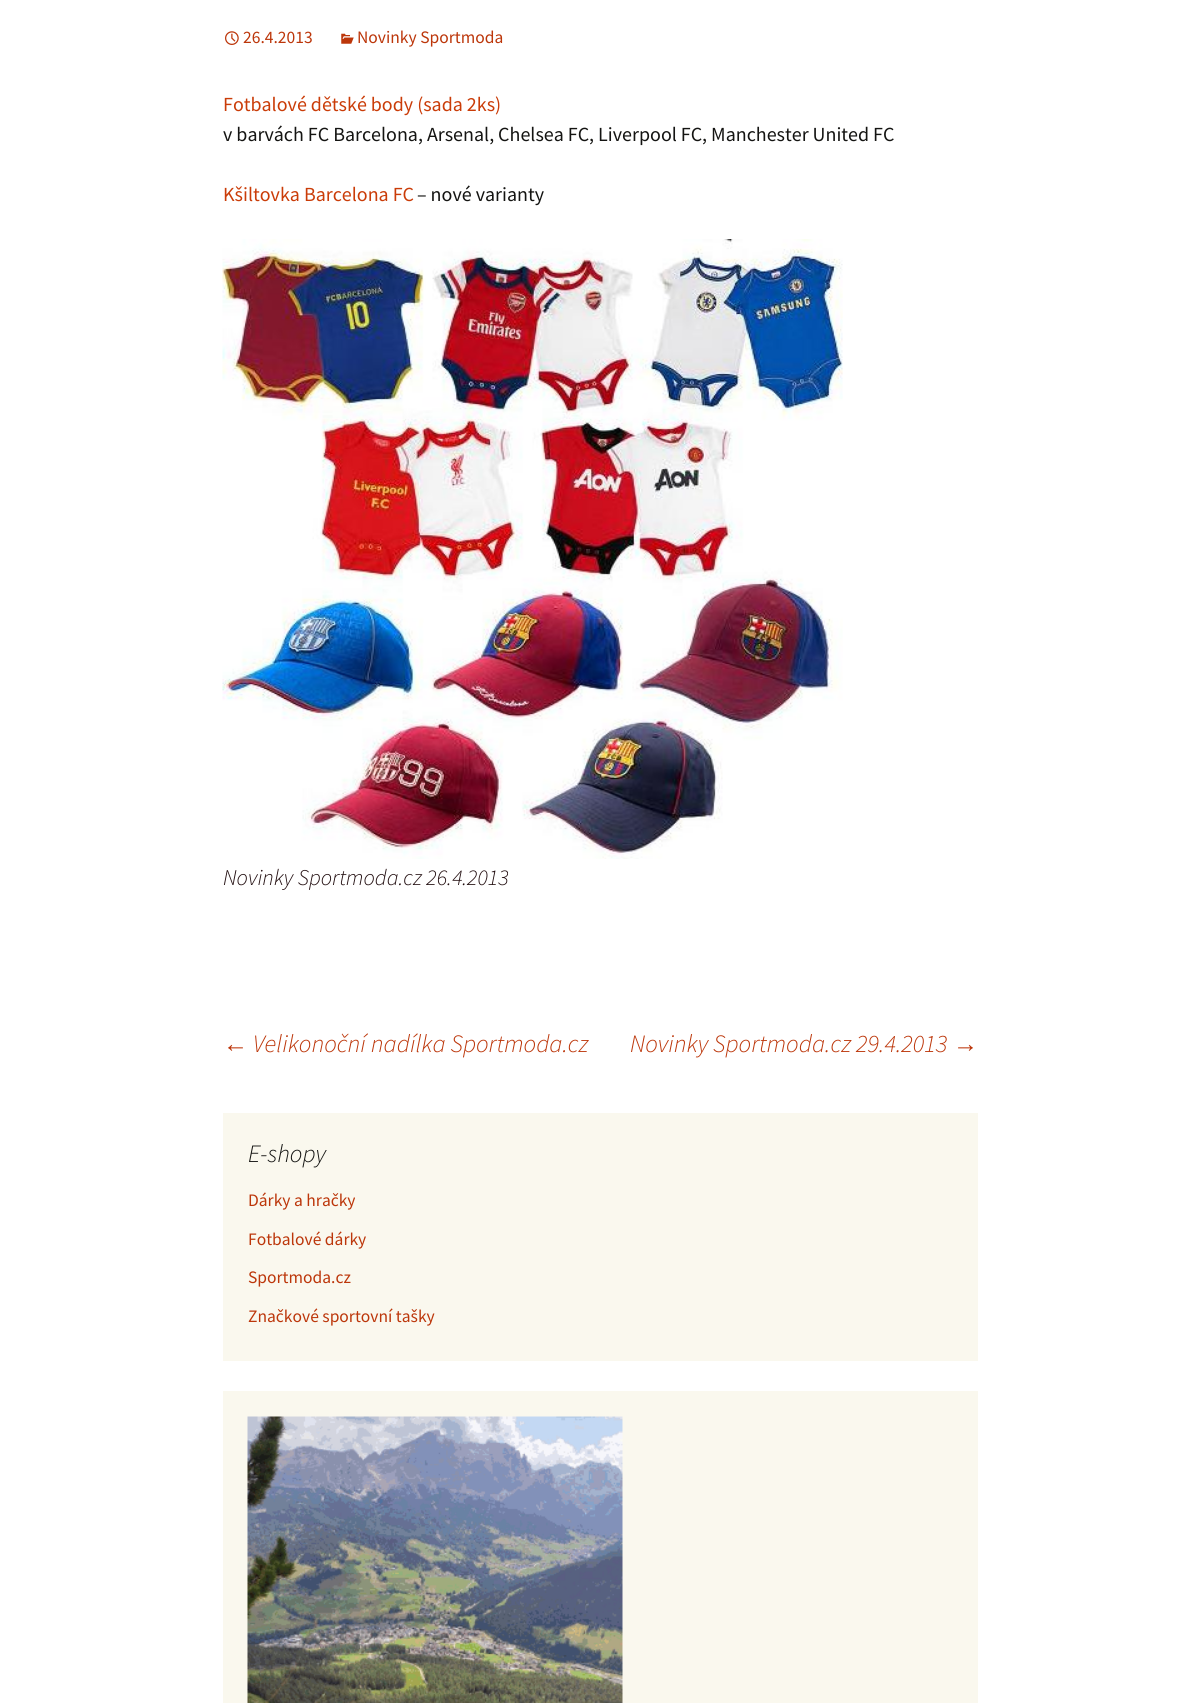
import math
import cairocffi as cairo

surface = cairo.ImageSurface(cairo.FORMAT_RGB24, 1200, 1703)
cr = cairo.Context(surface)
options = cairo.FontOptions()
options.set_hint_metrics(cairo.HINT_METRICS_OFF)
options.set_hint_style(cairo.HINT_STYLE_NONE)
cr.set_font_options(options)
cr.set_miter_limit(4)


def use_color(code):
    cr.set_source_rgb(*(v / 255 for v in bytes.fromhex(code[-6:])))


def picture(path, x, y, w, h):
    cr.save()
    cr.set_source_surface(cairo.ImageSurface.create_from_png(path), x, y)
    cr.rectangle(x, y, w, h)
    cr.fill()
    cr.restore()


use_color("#ffffff")
cr.paint()
picture("img1.png", 225, 31, 14, 14)
cr.select_font_face("Source Sans Pro")
cr.set_font_size(17.5)
use_color("#bc360a")
cr.move_to(243, 43)
cr.show_text("26.4.2013")
picture("img2.png", 341, 33, 13, 11)
cr.move_to(357, 43)
cr.show_text("Novinky Sportmoda")
cr.set_font_size(20)
use_color("#ca3c08")
cr.move_to(223, 111)
cr.show_text("Fotbalové dětské body (sada 2ks)")
use_color("#141412")
cr.move_to(223, 141)
cr.show_text("v barvách FC Barcelona, Arsenal, Chelsea FC, Liverpool FC, Manchester United FC")
use_color("#ca3c08")
cr.move_to(223, 201)
cr.show_text("Kšiltovka Barcelona FC")
use_color("#141412")
cr.move_to(417, 201)
cr.show_text("– nové varianty")
picture("img3.png", 222, 239, 621, 620)
cr.select_font_face("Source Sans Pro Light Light", cairo.FONT_SLANT_ITALIC)
cr.set_font_size(22.5)
use_color("#220e10")
cr.move_to(223, 885)
cr.show_text("Novinky Sportmoda.cz 26.4.2013")
cr.select_font_face("Liberation Sans", cairo.FONT_SLANT_ITALIC)
cr.set_font_size(25)
use_color("#bc360a")
cr.move_to(223, 1052)
cr.show_text("←")
cr.select_font_face("Source Sans Pro Light Light", cairo.FONT_SLANT_ITALIC)
cr.move_to(253, 1052)
cr.show_text("Velikonoční nadílka Sportmoda.cz")
cr.move_to(630, 1052)
cr.show_text("Novinky Sportmoda.cz 29.4.2013")
cr.select_font_face("Liberation Sans", cairo.FONT_SLANT_ITALIC)
cr.move_to(953, 1052)
cr.show_text("→")
use_color("#faf8ee")
cr.rectangle(223, 1113, 755, 248)
cr.fill()
cr.select_font_face("Source Sans Pro Light Light", cairo.FONT_SLANT_ITALIC)
use_color("#141412")
cr.move_to(248, 1162)
cr.show_text("E-shopy")
cr.select_font_face("Source Sans Pro")
cr.set_font_size(17.5)
use_color("#bc360a")
cr.move_to(248, 1206)
cr.show_text("Dárky a hračky")
cr.move_to(248, 1245)
cr.show_text("Fotbalové dárky")
cr.move_to(248, 1283)
cr.show_text("Sportmoda.cz")
cr.move_to(248, 1322)
cr.show_text("Značkové sportovní tašky")
use_color("#faf8ee")
cr.rectangle(223, 1391, 755, 312)
cr.fill()
picture("img4.png", 247, 1416, 376, 287)
surface.write_to_png("result.png")
